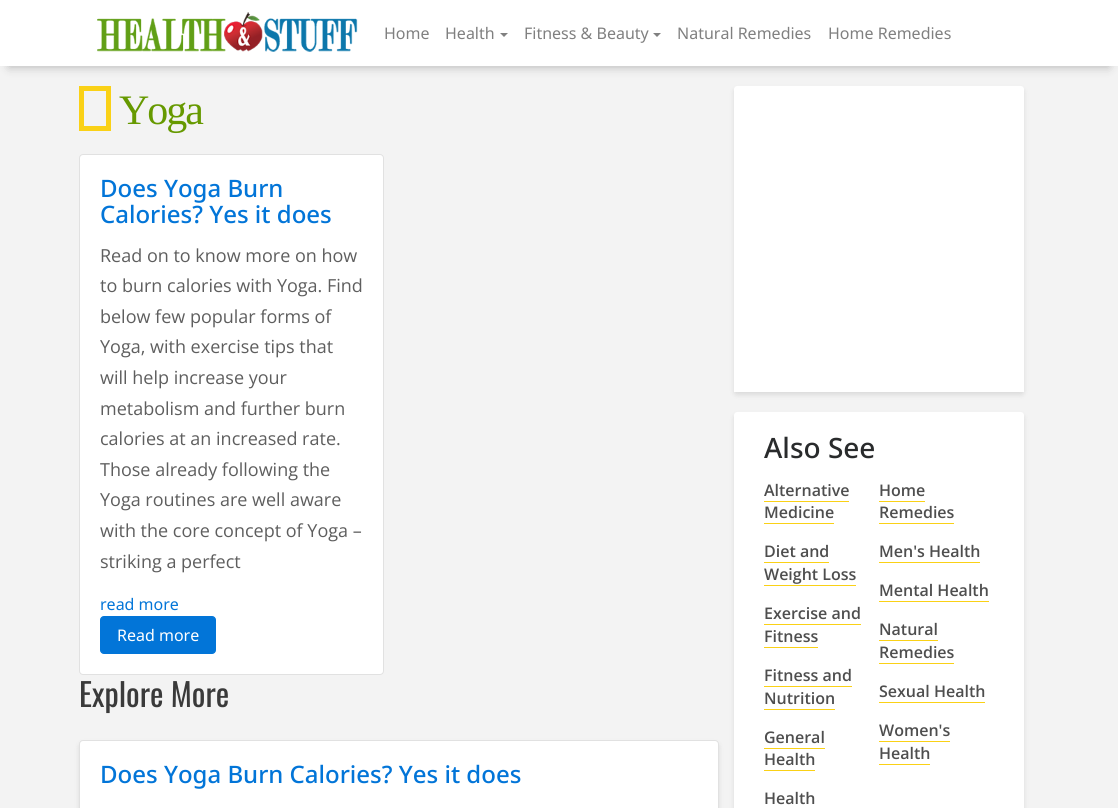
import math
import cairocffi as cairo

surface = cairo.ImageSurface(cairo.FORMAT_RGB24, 1118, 808)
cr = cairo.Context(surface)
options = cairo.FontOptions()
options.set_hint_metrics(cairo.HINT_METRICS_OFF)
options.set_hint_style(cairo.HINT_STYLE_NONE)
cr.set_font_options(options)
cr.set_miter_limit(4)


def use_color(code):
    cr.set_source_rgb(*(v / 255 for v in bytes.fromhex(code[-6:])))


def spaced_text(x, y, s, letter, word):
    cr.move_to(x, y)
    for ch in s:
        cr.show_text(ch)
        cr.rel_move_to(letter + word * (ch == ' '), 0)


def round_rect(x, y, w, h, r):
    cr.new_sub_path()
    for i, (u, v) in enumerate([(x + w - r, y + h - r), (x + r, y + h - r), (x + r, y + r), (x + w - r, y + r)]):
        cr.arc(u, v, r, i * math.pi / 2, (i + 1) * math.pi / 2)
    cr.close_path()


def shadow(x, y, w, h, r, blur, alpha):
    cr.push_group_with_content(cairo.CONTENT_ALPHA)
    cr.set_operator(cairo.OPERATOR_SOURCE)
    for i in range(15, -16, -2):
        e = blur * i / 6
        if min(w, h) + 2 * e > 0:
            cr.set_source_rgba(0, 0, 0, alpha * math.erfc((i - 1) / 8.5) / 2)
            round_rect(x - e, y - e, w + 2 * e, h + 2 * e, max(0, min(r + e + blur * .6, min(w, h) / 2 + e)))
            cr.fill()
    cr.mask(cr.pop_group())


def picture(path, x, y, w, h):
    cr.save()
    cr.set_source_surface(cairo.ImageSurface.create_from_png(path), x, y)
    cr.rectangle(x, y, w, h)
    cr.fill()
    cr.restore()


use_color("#f3f3f3")
cr.paint()
use_color("#000000")
shadow(9, 19, 1100, 48, 0, 5, 0.25)
use_color("#ffffff")
cr.rectangle(0, 0, 1118, 66)
cr.fill()
picture("img1.png", 97, 12, 261, 40)
cr.select_font_face("Noto Sans")
cr.set_font_size(16)
use_color("#808080")
cr.move_to(384, 39)
cr.show_text("Home")
cr.move_to(445, 39)
cr.show_text("Health")
cr.new_path()
cr.move_to(500, 33)
cr.line_to(508, 33)
cr.line_to(504, 37)
cr.close_path()
cr.fill()
cr.move_to(524, 39)
cr.show_text("Fitness & Beauty")
cr.new_path()
cr.move_to(653, 33)
cr.line_to(661, 33)
cr.line_to(657, 37)
cr.close_path()
cr.fill()
cr.move_to(677, 39)
cr.show_text("Natural Remedies")
cr.move_to(828, 39)
cr.show_text("Home Remedies")
cr.rectangle(81.5, 88.5, 27, 40)
use_color("#fad116")
cr.set_line_width(5)
cr.stroke()
cr.select_font_face("Liberation Serif")
cr.set_font_size(42)
use_color("#669900")
spaced_text(119, 124, "Yoga", -2, 0)
use_color("#ffffff")
round_rect(79, 154, 305, 521, 4)
cr.fill()
round_rect(79.5, 154.5, 304, 520, 3.5)
cr.set_source_rgba(0, 0, 0, 0.12)
cr.set_line_width(1)
cr.stroke()
cr.select_font_face("Noto Sans Medium")
cr.set_font_size(24)
use_color("#0275d8")
cr.move_to(100, 197)
cr.show_text("Does Yoga Burn")
cr.move_to(100, 223)
cr.show_text("Calories? Yes it does")
cr.select_font_face("Open Sans")
cr.set_font_size(18)
use_color("#5e5e5e")
cr.move_to(100, 262)
cr.show_text("Read on to know more on how")
cr.move_to(100, 292)
cr.show_text("to burn calories with Yoga. Find")
cr.move_to(100, 323)
cr.show_text("below few popular forms of")
cr.move_to(100, 353)
cr.show_text("Yoga, with exercise tips that")
cr.move_to(100, 384)
cr.show_text("will help increase your")
cr.move_to(100, 415)
cr.show_text("metabolism and further burn")
cr.move_to(100, 445)
cr.show_text("calories at an increased rate.")
cr.move_to(100, 476)
cr.show_text("Those already following the")
cr.move_to(100, 506)
cr.show_text("Yoga routines are well aware")
cr.move_to(100, 537)
cr.show_text("with the core concept of Yoga –")
cr.move_to(100, 568)
cr.show_text("striking a perfect")
cr.select_font_face("Noto Sans")
cr.set_font_size(16)
use_color("#0275d8")
cr.move_to(100, 610)
cr.show_text("read more")
round_rect(100.5, 616.5, 115, 37, 3.5)
cr.fill_preserve()
cr.stroke()
use_color("#ffffff")
cr.move_to(117, 641)
cr.show_text("Read more")
cr.select_font_face("Oswald")
cr.set_font_size(32)
use_color("#3a3a3a")
cr.move_to(79, 707)
cr.show_text("Explore More")
use_color("#000101")
shadow(79, 743, 640, 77, 4, 2.5, 0.1)
use_color("#ffffff")
round_rect(79, 740, 640, 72, 4)
cr.fill()
round_rect(79.5, 740.5, 639, 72, 3.5)
cr.set_source_rgba(0, 0, 0, 0.12)
cr.stroke()
cr.select_font_face("Noto Sans Medium")
cr.set_font_size(24)
use_color("#0275d8")
cr.move_to(100, 783)
cr.show_text("Does Yoga Burn Calories? Yes it does")
use_color("#000101")
shadow(734, 89, 290, 306, 3, 2.5, 0.1)
use_color("#ffffff")
cr.new_path()
cr.move_to(737, 86)
cr.line_to(1021, 86)
cr.curve_to(1022.5, 86, 1024, 87.5, 1024, 89)
cr.line_to(1024, 392)
cr.line_to(734, 392)
cr.line_to(734, 89)
cr.curve_to(734, 87.5, 735.5, 86, 737, 86)
cr.close_path()
cr.fill()
use_color("#000101")
shadow(734, 415, 290, 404, 3, 2.5, 0.1)
use_color("#ffffff")
cr.new_path()
cr.move_to(737, 412)
cr.line_to(1021, 412)
cr.curve_to(1022.5, 412, 1024, 413.5, 1024, 415)
cr.line_to(1024, 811)
cr.line_to(734, 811)
cr.line_to(734, 415)
cr.curve_to(734, 413.5, 735.5, 412, 737, 412)
cr.close_path()
cr.fill()
cr.set_font_size(28)
use_color("#292b2c")
cr.move_to(764, 458)
cr.show_text("Also See")
cr.select_font_face("Open Sans SemiBold")
cr.set_font_size(16)
use_color("#4e4e4e")
cr.move_to(764, 496)
cr.show_text("Alternative")
cr.move_to(764, 518)
cr.show_text("Medicine")
use_color("#fad116")
cr.rectangle(764, 501, 85, 1)
cr.fill()
cr.rectangle(764, 523, 70, 1)
cr.fill()
use_color("#4e4e4e")
cr.move_to(764, 557)
cr.show_text("Diet and")
use_color("#fad116")
cr.rectangle(764, 562, 65, 1)
cr.fill()
use_color("#4e4e4e")
cr.move_to(764, 580)
cr.show_text("Weight Loss")
use_color("#fad116")
cr.rectangle(764, 585, 92, 1)
cr.fill()
use_color("#4e4e4e")
cr.move_to(764, 619)
cr.show_text("Exercise and")
use_color("#fad116")
cr.rectangle(764, 624, 97, 1)
cr.fill()
use_color("#4e4e4e")
cr.move_to(764, 642)
cr.show_text("Fitness")
use_color("#fad116")
cr.rectangle(764, 647, 54, 1)
cr.fill()
use_color("#4e4e4e")
cr.move_to(764, 681)
cr.show_text("Fitness and")
use_color("#fad116")
cr.rectangle(764, 686, 88, 1)
cr.fill()
use_color("#4e4e4e")
cr.move_to(764, 704)
cr.show_text("Nutrition")
use_color("#fad116")
cr.rectangle(764, 709, 71, 1)
cr.fill()
use_color("#4e4e4e")
cr.move_to(764, 743)
cr.show_text("General")
cr.move_to(764, 765)
cr.show_text("Health")
use_color("#fad116")
cr.rectangle(764, 748, 61, 1)
cr.fill()
cr.rectangle(764, 770, 51, 1)
cr.fill()
use_color("#4e4e4e")
cr.move_to(764, 804)
cr.show_text("Health")
cr.move_to(879, 496)
cr.show_text("Home")
cr.move_to(879, 518)
cr.show_text("Remedies")
use_color("#fad116")
cr.rectangle(879, 501, 46, 1)
cr.fill()
cr.rectangle(879, 523, 75, 1)
cr.fill()
use_color("#4e4e4e")
cr.move_to(879, 557)
cr.show_text("Men's Health")
use_color("#fad116")
cr.rectangle(879, 562, 101, 1)
cr.fill()
use_color("#4e4e4e")
cr.move_to(879, 596)
cr.show_text("Mental Health")
use_color("#fad116")
cr.rectangle(879, 601, 110, 1)
cr.fill()
use_color("#4e4e4e")
cr.move_to(879, 635)
cr.show_text("Natural")
use_color("#fad116")
cr.rectangle(879, 640, 59, 1)
cr.fill()
use_color("#4e4e4e")
cr.move_to(879, 658)
cr.show_text("Remedies")
use_color("#fad116")
cr.rectangle(879, 663, 75, 1)
cr.fill()
use_color("#4e4e4e")
cr.move_to(879, 697)
cr.show_text("Sexual Health")
use_color("#fad116")
cr.rectangle(879, 702, 106, 1)
cr.fill()
use_color("#4e4e4e")
cr.move_to(879, 736)
cr.show_text("Women's")
use_color("#fad116")
cr.rectangle(879, 741, 71, 1)
cr.fill()
use_color("#4e4e4e")
cr.move_to(879, 759)
cr.show_text("Health")
use_color("#fad116")
cr.rectangle(879, 764, 51, 1)
cr.fill()
surface.write_to_png("result.png")
